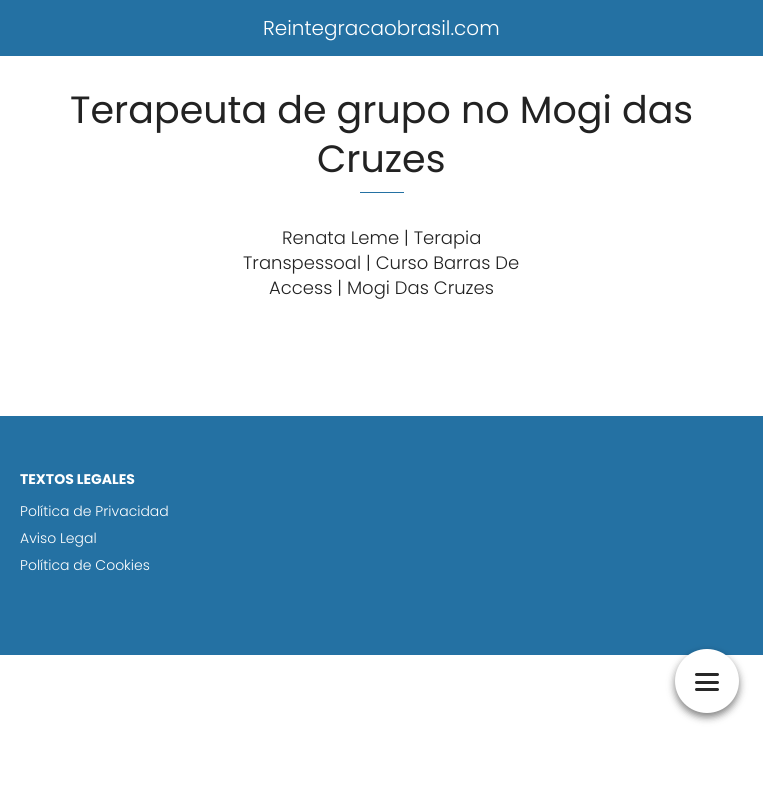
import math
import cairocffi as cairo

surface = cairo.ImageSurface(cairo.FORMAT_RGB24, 763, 793)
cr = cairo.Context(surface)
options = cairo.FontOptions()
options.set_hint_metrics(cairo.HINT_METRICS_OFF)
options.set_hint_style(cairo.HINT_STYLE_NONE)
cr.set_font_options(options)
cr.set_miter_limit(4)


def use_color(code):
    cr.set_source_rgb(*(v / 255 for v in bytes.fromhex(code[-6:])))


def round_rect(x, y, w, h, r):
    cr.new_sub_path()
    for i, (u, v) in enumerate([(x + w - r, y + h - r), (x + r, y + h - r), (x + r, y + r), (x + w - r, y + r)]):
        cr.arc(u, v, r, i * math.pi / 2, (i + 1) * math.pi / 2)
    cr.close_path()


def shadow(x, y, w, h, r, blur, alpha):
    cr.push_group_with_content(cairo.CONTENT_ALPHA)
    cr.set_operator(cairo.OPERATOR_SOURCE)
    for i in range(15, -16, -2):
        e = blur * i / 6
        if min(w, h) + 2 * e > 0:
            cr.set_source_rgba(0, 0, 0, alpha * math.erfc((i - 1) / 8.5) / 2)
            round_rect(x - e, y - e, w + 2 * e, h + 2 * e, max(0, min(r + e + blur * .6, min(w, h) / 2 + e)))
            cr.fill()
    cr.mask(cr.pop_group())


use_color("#ffffff")
cr.paint()
use_color("#2471a3")
cr.rectangle(0, 0, 763, 56)
cr.fill()
cr.select_font_face("Poppins Light")
cr.set_font_size(20)
use_color("#ffffff")
cr.move_to(263, 35)
cr.show_text("Reintegracaobrasil.com")
use_color("#2471a3")
cr.rectangle(0, 416, 763, 239)
cr.fill()
use_color("#000000")
shadow(675, 653, 64, 64, 32, 4, 0.5)
use_color("#ffffff")
cr.arc(707, 681, 32, 0, 2 * math.pi)
cr.fill()
use_color("#282828")
round_rect(695, 673, 24, 3, 1.5)
cr.fill()
round_rect(695, 681, 24, 3, 1.5)
cr.fill()
round_rect(695, 688, 24, 3, 1.5)
cr.fill()
cr.select_font_face("Poppins")
cr.set_font_size(38)
use_color("#222222")
cr.move_to(70, 123)
cr.show_text("Terapeuta de grupo no Mogi das")
cr.move_to(317, 172)
cr.show_text("Cruzes")
use_color("#2471a3")
cr.rectangle(360, 192, 44, 1)
cr.fill()
cr.select_font_face("Poppins Light")
cr.set_font_size(18)
use_color("#222222")
cr.move_to(282, 244)
cr.show_text("Renata Leme | Terapia")
cr.move_to(243, 269)
cr.show_text("Transpessoal | Curso Barras De")
cr.move_to(269, 294)
cr.show_text("Access | Mogi Das Cruzes")
cr.select_font_face("Poppins", cairo.FONT_SLANT_NORMAL, cairo.FONT_WEIGHT_BOLD)
cr.set_font_size(14)
use_color("#ffffff")
cr.move_to(20, 484)
cr.show_text("TEXTOS LEGALES")
cr.select_font_face("Poppins Light")
cr.move_to(20, 516)
cr.show_text("Política de Privacidad")
cr.move_to(20, 543)
cr.show_text("Aviso Legal")
cr.move_to(20, 570)
cr.show_text("Política de Cookies")
surface.write_to_png("result.png")
